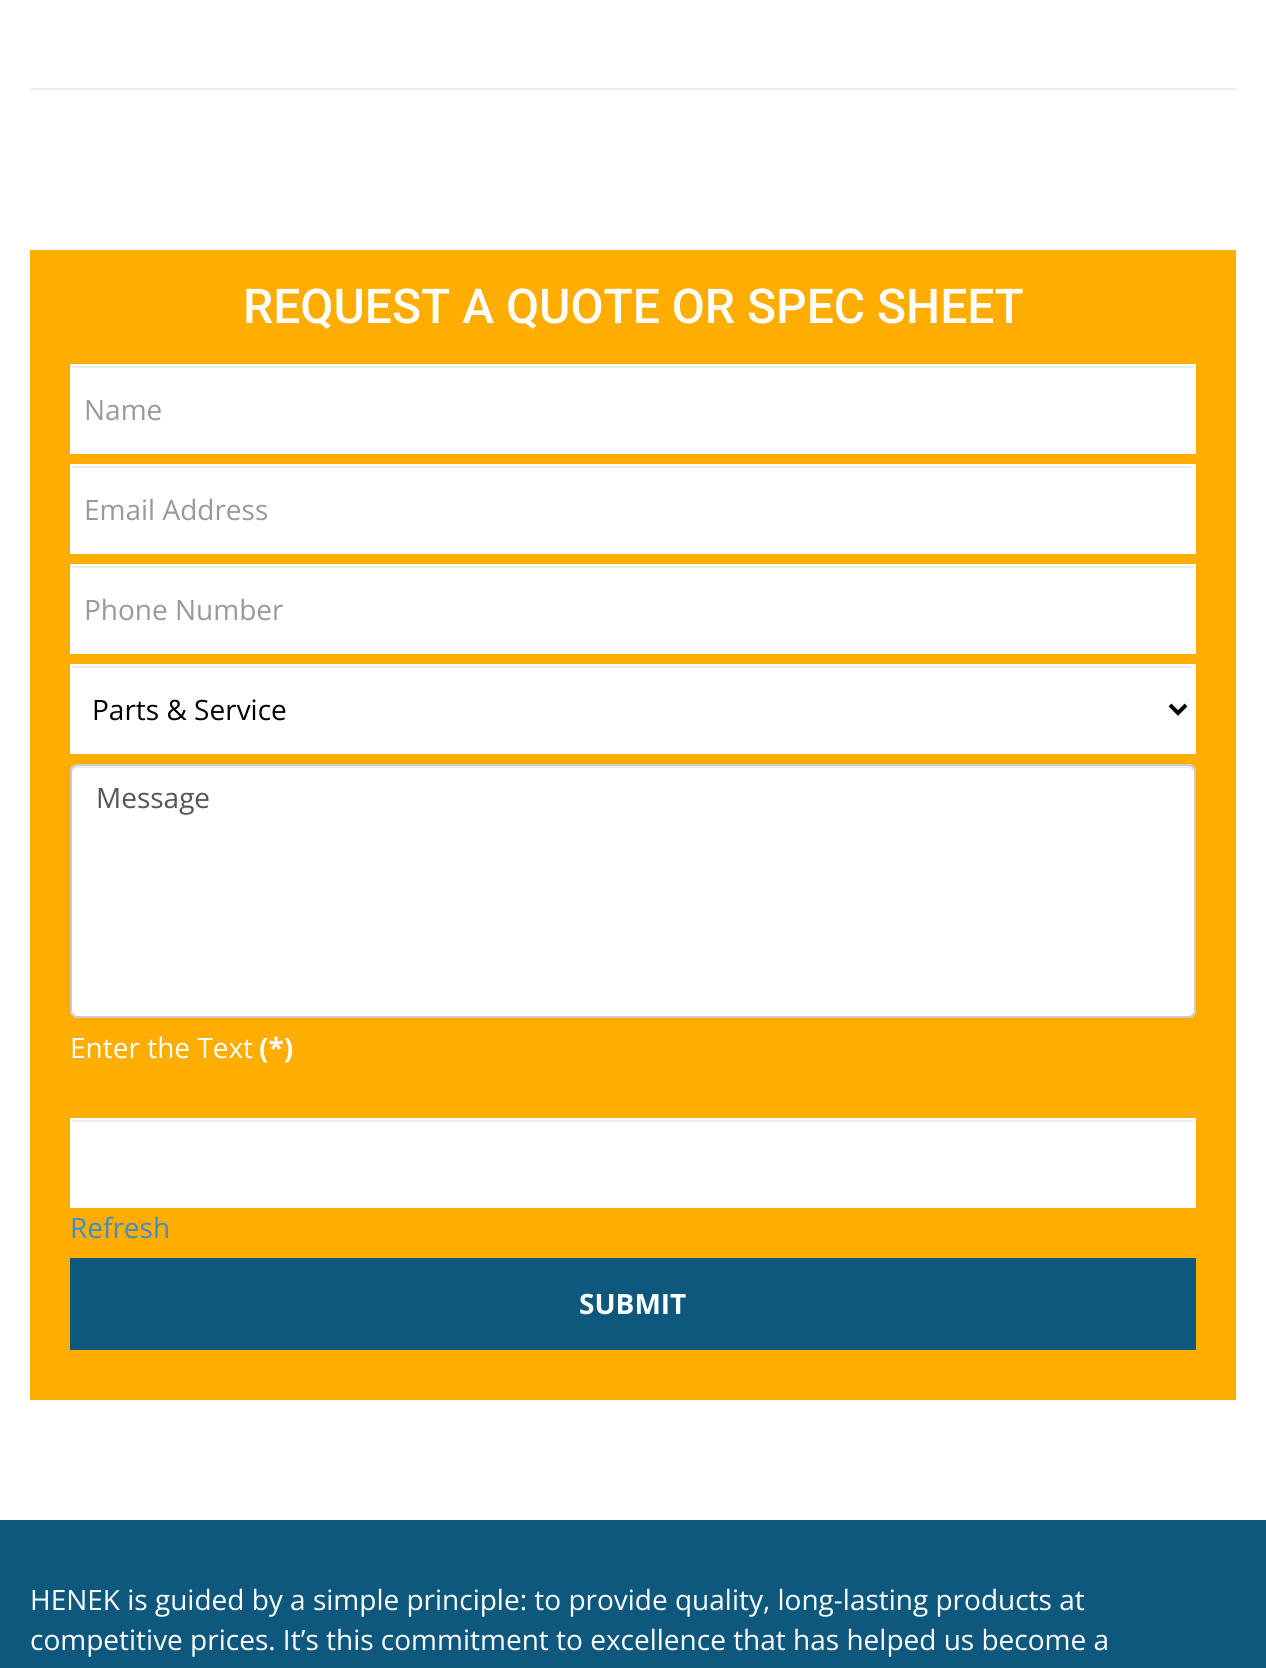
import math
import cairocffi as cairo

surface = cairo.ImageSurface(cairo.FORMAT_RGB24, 1266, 1668)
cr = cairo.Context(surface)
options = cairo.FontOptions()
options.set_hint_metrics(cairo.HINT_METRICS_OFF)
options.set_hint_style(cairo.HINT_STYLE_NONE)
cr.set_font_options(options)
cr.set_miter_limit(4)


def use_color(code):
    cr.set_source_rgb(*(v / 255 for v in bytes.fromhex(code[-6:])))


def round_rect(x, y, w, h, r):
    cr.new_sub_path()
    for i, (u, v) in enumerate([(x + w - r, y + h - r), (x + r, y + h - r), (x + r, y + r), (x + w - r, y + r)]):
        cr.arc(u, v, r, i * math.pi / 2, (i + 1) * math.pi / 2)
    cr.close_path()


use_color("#ffffff")
cr.paint()
use_color("#eeeeee")
cr.rectangle(30, 88, 1206, 2)
cr.fill()
use_color("#ffad00")
cr.rectangle(30, 250, 1206, 1150)
cr.fill()
cr.select_font_face("Roboto Medium")
cr.set_font_size(48)
use_color("#ffffff")
cr.move_to(243, 323)
cr.show_text("REQUEST A QUOTE OR SPEC SHEET")
cr.rectangle(70, 364, 1126, 90)
cr.fill()
use_color("#ececec")
cr.rectangle(72, 366, 1122, 2)
cr.fill()
cr.select_font_face("Open Sans")
cr.set_font_size(28)
use_color("#999999")
cr.move_to(84, 420)
cr.show_text("Name")
use_color("#ffffff")
cr.rectangle(70, 464, 1126, 90)
cr.fill()
use_color("#ececec")
cr.rectangle(72, 466, 1122, 2)
cr.fill()
use_color("#999999")
cr.move_to(84, 520)
cr.show_text("Email Address")
use_color("#ffffff")
cr.rectangle(70, 564, 1126, 90)
cr.fill()
use_color("#ececec")
cr.rectangle(72, 566, 1122, 2)
cr.fill()
use_color("#999999")
cr.move_to(84, 620)
cr.show_text("Phone Number")
use_color("#ffffff")
cr.rectangle(70, 664, 1126, 90)
cr.fill()
use_color("#ececec")
cr.rectangle(72, 666, 1122, 2)
cr.fill()
cr.new_path()
cr.move_to(1170, 705)
cr.line_to(1178, 713)
cr.line_to(1186, 705)
use_color("#000000")
cr.set_line_width(4)
cr.stroke()
cr.move_to(92, 720)
cr.show_text("Parts & Service")
use_color("#ffffff")
round_rect(70, 764, 1126, 254, 8)
cr.fill()
use_color("#ececec")
cr.new_path()
cr.move_to(78, 768)
cr.line_to(1188, 768)
cr.curve_to(1191, 768, 1194, 771, 1194, 774)
cr.line_to(1194, 772)
cr.curve_to(1194, 769, 1191, 766, 1188, 766)
cr.line_to(78, 766)
cr.curve_to(75, 766, 72, 769, 72, 772)
cr.line_to(72, 774)
cr.curve_to(72, 771, 75, 768, 78, 768)
cr.close_path()
cr.fill()
round_rect(71, 765, 1124, 252, 7)
use_color("#cccccc")
cr.set_line_width(2)
cr.stroke()
use_color("#555555")
cr.move_to(96, 808)
cr.show_text("Message")
use_color("#ffffff")
cr.move_to(70, 1058)
cr.show_text("Enter the Text")
cr.select_font_face("Open Sans", cairo.FONT_SLANT_NORMAL, cairo.FONT_WEIGHT_BOLD)
cr.move_to(259, 1058)
cr.show_text("(*)")
cr.rectangle(70, 1118, 1126, 90)
cr.fill()
use_color("#ececec")
cr.rectangle(72, 1120, 1122, 2)
cr.fill()
cr.select_font_face("Open Sans")
use_color("#428bca")
cr.move_to(70, 1238)
cr.show_text("Refresh")
use_color("#0e587d")
cr.rectangle(70, 1258, 1126, 92)
cr.fill()
cr.select_font_face("Open Sans", cairo.FONT_SLANT_NORMAL, cairo.FONT_WEIGHT_BOLD)
use_color("#ffffff")
cr.move_to(579, 1314)
cr.show_text("SUBMIT")
use_color("#0e587d")
cr.rectangle(0, 1520, 1266, 148)
cr.fill()
cr.select_font_face("Open Sans")
use_color("#ffffff")
cr.move_to(30, 1610)
cr.show_text("HENEK is guided by a simple principle: to provide quality, long-lasting products at")
cr.move_to(30, 1650)
cr.show_text("competitive prices. It’s this commitment to excellence that has helped us become a")
surface.write_to_png("result.png")
